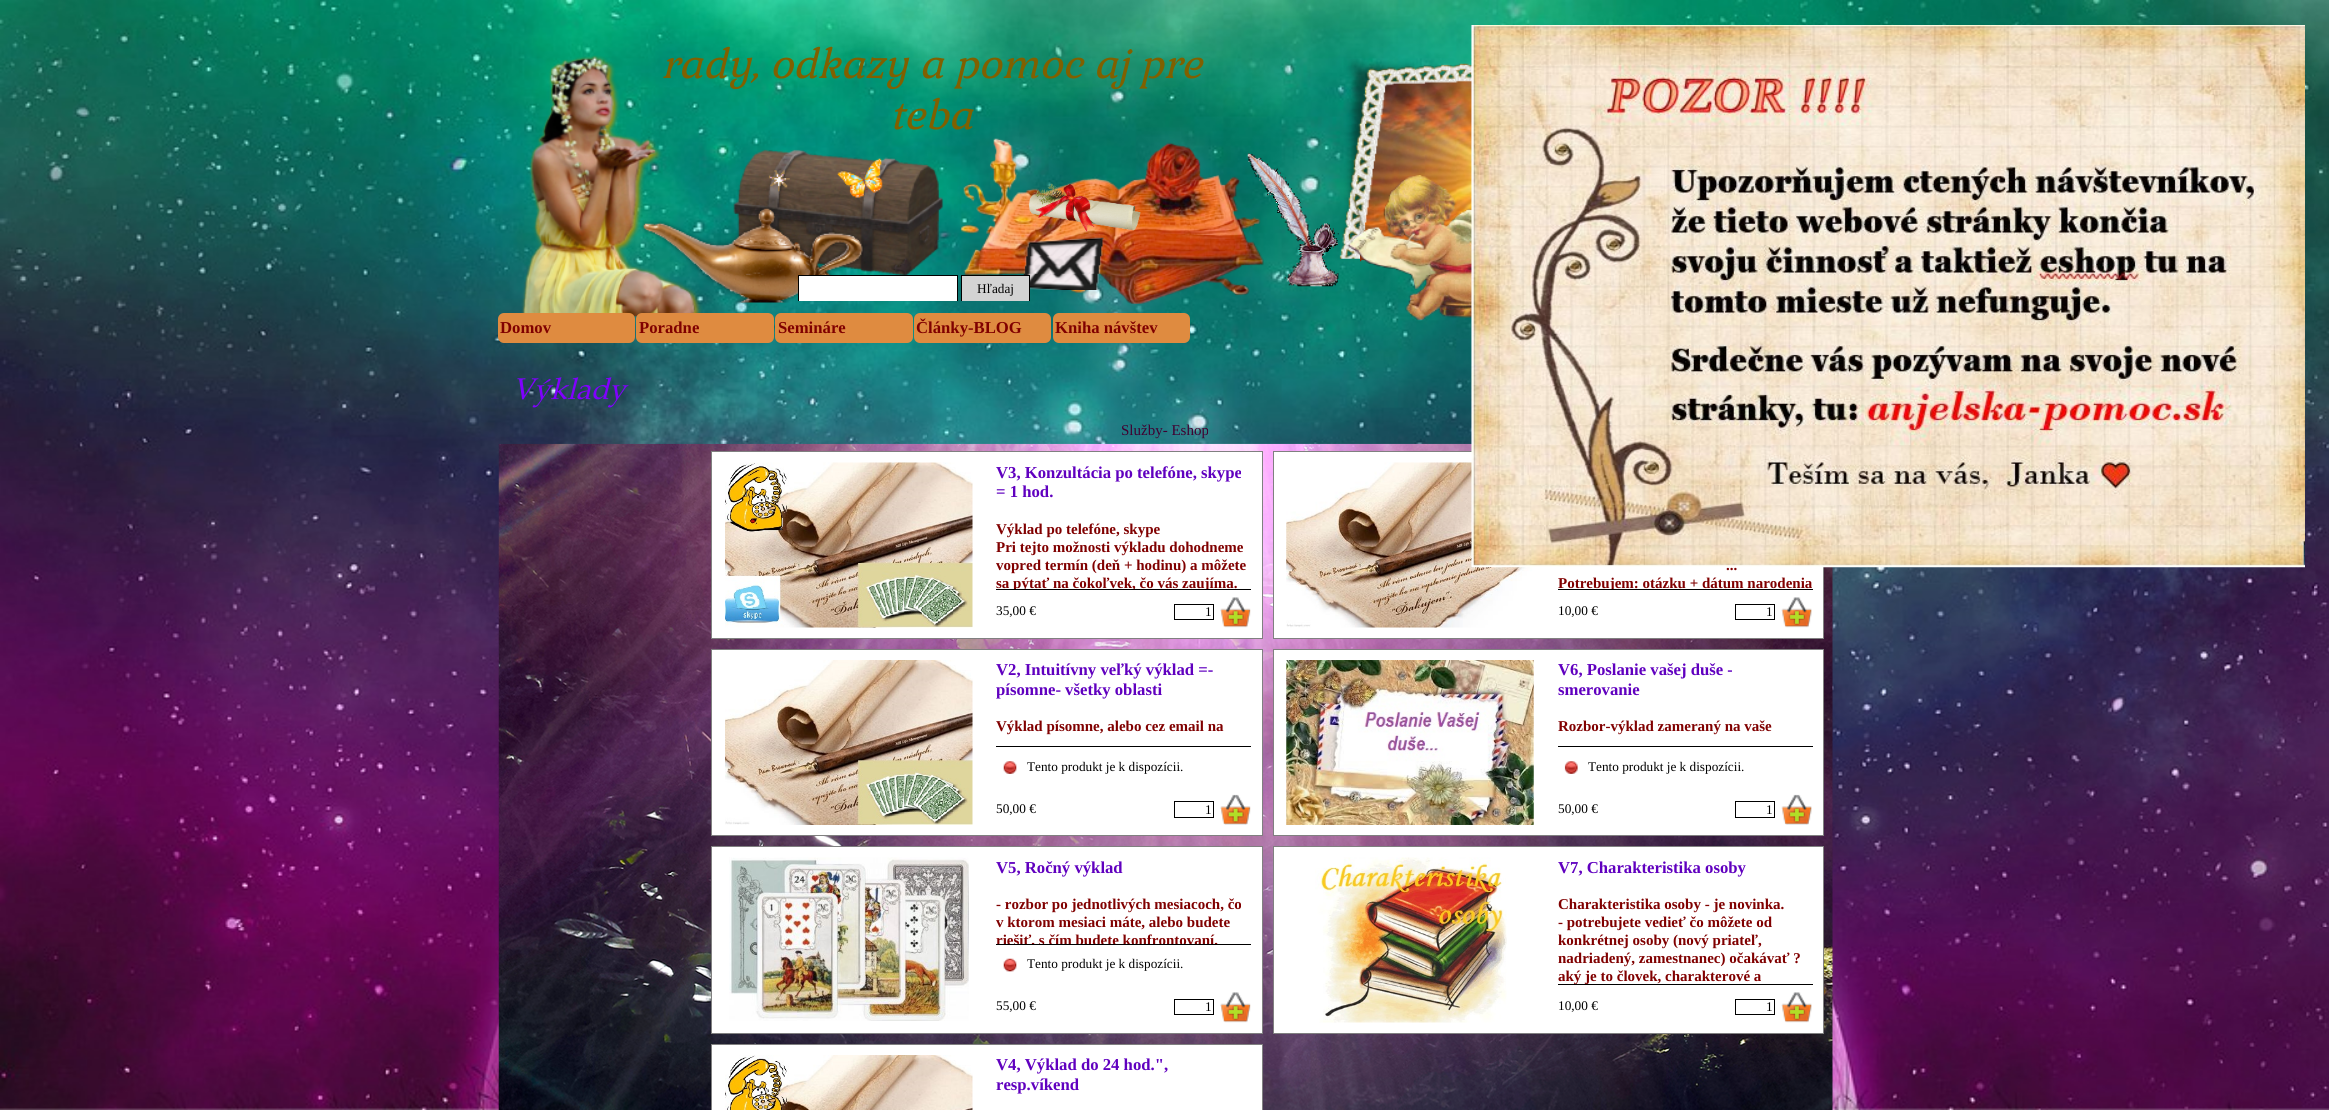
import math
import cairocffi as cairo

surface = cairo.ImageSurface(cairo.FORMAT_RGB24, 2329, 1110)
cr = cairo.Context(surface)
options = cairo.FontOptions()
options.set_hint_metrics(cairo.HINT_METRICS_OFF)
options.set_hint_style(cairo.HINT_STYLE_NONE)
cr.set_font_options(options)
cr.set_miter_limit(4)


def use_color(code):
    cr.set_source_rgb(*(v / 255 for v in bytes.fromhex(code[-6:])))


def round_rect(x, y, w, h, r):
    cr.new_sub_path()
    for i, (u, v) in enumerate([(x + w - r, y + h - r), (x + r, y + h - r), (x + r, y + r), (x + w - r, y + r)]):
        cr.arc(u, v, r, i * math.pi / 2, (i + 1) * math.pi / 2)
    cr.close_path()


def picture(path, x, y, w, h):
    cr.save()
    cr.set_source_surface(cairo.ImageSurface.create_from_png(path), x, y)
    cr.rectangle(x, y, w, h)
    cr.fill()
    cr.restore()


use_color("#ffffff")
cr.paint()
picture("img1.png", 0, 0, 2329, 1110)
cr.select_font_face("Gabriela", cairo.FONT_SLANT_ITALIC)
cr.set_font_size(40)
use_color("#806000")
cr.move_to(661, 78)
cr.show_text("rady, odkazy a pomoc aj pre")
picture("img2.png", 521, 55, 181, 262)
cr.move_to(890, 129)
cr.show_text("teba")
picture("img3.png", 1339, 59, 133, 200)
picture("img4.png", 733, 149, 211, 126)
picture("img5.png", 960, 138, 304, 166)
picture("img6.png", 1247, 153, 92, 134)
picture("img7.png", 1360, 80, 112, 182)
picture("img8.png", 768, 170, 22, 22)
picture("img9.png", 837, 158, 46, 40)
picture("img10.png", 1028, 183, 113, 50)
picture("img11.png", 1347, 175, 125, 145)
picture("img12.png", 640, 206, 224, 97)
use_color("#ffffff")
cr.rectangle(799, 276, 158, 25)
cr.fill()
cr.save()
cr.rectangle(798, 275, 232, 26)
cr.clip()
cr.rectangle(798.5, 275.5, 159, 27)
use_color("#000000")
cr.set_line_width(1)
cr.stroke()
cr.restore()
picture("img13.png", 1023, 237, 81, 53)
use_color("#d3d3d3")
cr.rectangle(962, 276, 67, 25)
cr.fill()
cr.save()
cr.rectangle(798, 275, 232, 26)
cr.clip()
cr.rectangle(961.5, 275.5, 68, 27)
use_color("#000000")
cr.set_line_width(1)
cr.stroke()
cr.restore()
cr.select_font_face("Liberation Serif")
cr.set_font_size(13.25)
use_color("#000000")
cr.move_to(977, 293)
cr.show_text("Hľadaj")
use_color("#df8b40")
round_rect(498, 313, 137, 30, 6)
cr.fill()
cr.select_font_face("Liberation Serif", cairo.FONT_SLANT_NORMAL, cairo.FONT_WEIGHT_BOLD)
cr.set_font_size(16.7)
use_color("#800000")
cr.move_to(500, 333)
cr.show_text("Domov")
use_color("#df8b40")
round_rect(636, 313, 138, 30, 6)
cr.fill()
use_color("#800000")
cr.move_to(639, 333)
cr.show_text("Poradne")
use_color("#df8b40")
round_rect(775, 313, 138, 30, 6)
cr.fill()
use_color("#800000")
cr.move_to(778, 333)
cr.show_text("Semináre")
use_color("#df8b40")
round_rect(914, 313, 137, 30, 6)
cr.fill()
use_color("#800000")
cr.move_to(916, 333)
cr.show_text("Články-BLOG")
use_color("#df8b40")
round_rect(1053, 313, 137, 30, 6)
cr.fill()
use_color("#800000")
cr.move_to(1055, 333)
cr.show_text("Kniha návštev")
cr.select_font_face("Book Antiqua", cairo.FONT_SLANT_ITALIC)
cr.set_font_size(30)
use_color("#8000ff")
cr.move_to(512, 399)
cr.show_text("Výklady")
cr.select_font_face("Liberation Serif")
cr.set_font_size(15)
use_color("#400030")
cr.move_to(1121, 435)
cr.show_text("Služby- Eshop")
picture("img14.png", 498, 443, 1335, 667)
use_color("#ffffff")
cr.rectangle(711.5, 451.5, 551, 187)
cr.fill_preserve()
use_color("#808080")
cr.set_line_width(1)
cr.stroke()
picture("img15.png", 725, 462, 248, 166)
cr.select_font_face("Liberation Serif", cairo.FONT_SLANT_NORMAL, cairo.FONT_WEIGHT_BOLD)
cr.set_font_size(16.7)
use_color("#6000bf")
cr.move_to(996, 478)
cr.show_text("V3, Konzultácia po telefóne, skype")
cr.move_to(996, 497)
cr.show_text("= 1 hod.")
cr.set_font_size(15)
use_color("#800000")
cr.move_to(996, 534)
cr.show_text("Výklad po telefóne, skype")
cr.move_to(996, 552)
cr.show_text("Pri tejto možnosti výkladu dohodneme")
cr.move_to(996, 570)
cr.show_text("vopred termín (deň + hodinu) a môžete")
cr.save()
cr.rectangle(986, 503, 275, 86)
cr.clip()
cr.move_to(996, 588)
cr.show_text("sa pýtať na čokoľvek, čo vás zaujíma.")
cr.restore()
use_color("#000000")
cr.rectangle(996, 589, 255, 1)
cr.fill()
cr.select_font_face("Liberation Serif")
cr.set_font_size(13.25)
cr.move_to(996, 615)
cr.show_text("35,00 €")
cr.rectangle(1174.5, 604.5, 39, 15)
cr.stroke()
cr.move_to(1205, 616)
cr.show_text("1")
picture("img16.png", 1220, 597, 31, 31)
use_color("#ffffff")
cr.rectangle(1273.5, 451.5, 550, 187)
cr.fill_preserve()
use_color("#808080")
cr.stroke()
picture("img17.png", 1286, 462, 248, 166)
cr.select_font_face("Liberation Serif", cairo.FONT_SLANT_NORMAL, cairo.FONT_WEIGHT_BOLD)
cr.set_font_size(15)
use_color("#800000")
cr.move_to(1726, 570)
cr.show_text("...")
cr.save()
cr.rectangle(1548, 503, 275, 86)
cr.clip()
cr.move_to(1558, 588)
cr.show_text("Potrebujem: otázku + dátum narodenia")
cr.restore()
use_color("#000000")
cr.rectangle(1558, 589, 255, 1)
cr.fill()
cr.select_font_face("Liberation Serif")
cr.set_font_size(13.25)
cr.move_to(1558, 615)
cr.show_text("10,00 €")
cr.rectangle(1735.5, 604.5, 39, 15)
cr.stroke()
cr.move_to(1766, 616)
cr.show_text("1")
picture("img18.png", 1781, 597, 31, 31)
use_color("#ffffff")
cr.rectangle(711.5, 649.5, 551, 186)
cr.fill_preserve()
use_color("#808080")
cr.stroke()
picture("img19.png", 725, 660, 248, 165)
cr.select_font_face("Liberation Serif", cairo.FONT_SLANT_NORMAL, cairo.FONT_WEIGHT_BOLD)
cr.set_font_size(16.7)
use_color("#6000bf")
cr.move_to(996, 675)
cr.show_text("V2, Intuitívny veľký výklad =-")
cr.move_to(996, 695)
cr.show_text("písomne- všetky oblasti")
cr.set_font_size(15)
use_color("#800000")
cr.move_to(996, 731)
cr.show_text("Výklad písomne, alebo cez email na")
use_color("#000000")
cr.rectangle(996, 746, 255, 1)
cr.fill()
picture("img20.png", 1003, 761, 14, 13)
cr.select_font_face("Liberation Serif")
cr.set_font_size(13.25)
cr.move_to(1027, 771)
cr.show_text("Tento produkt je k dispozícii.")
cr.move_to(996, 813)
cr.show_text("50,00 €")
cr.rectangle(1174.5, 801.5, 39, 16)
cr.stroke()
cr.move_to(1205, 814)
cr.show_text("1")
picture("img21.png", 1220, 794, 31, 31)
use_color("#ffffff")
cr.rectangle(1273.5, 649.5, 550, 186)
cr.fill_preserve()
use_color("#808080")
cr.stroke()
picture("img22.png", 1286, 660, 248, 165)
cr.select_font_face("Liberation Serif", cairo.FONT_SLANT_NORMAL, cairo.FONT_WEIGHT_BOLD)
cr.set_font_size(16.7)
use_color("#6000bf")
cr.move_to(1558, 675)
cr.show_text("V6, Poslanie vašej duše -")
cr.move_to(1558, 695)
cr.show_text("smerovanie")
cr.set_font_size(15)
use_color("#800000")
cr.move_to(1558, 731)
cr.show_text("Rozbor-výklad zameraný na vaše")
use_color("#000000")
cr.rectangle(1558, 746, 255, 1)
cr.fill()
picture("img23.png", 1564, 761, 14, 13)
cr.select_font_face("Liberation Serif")
cr.set_font_size(13.25)
cr.move_to(1588, 771)
cr.show_text("Tento produkt je k dispozícii.")
cr.move_to(1558, 813)
cr.show_text("50,00 €")
cr.rectangle(1735.5, 801.5, 39, 16)
cr.stroke()
cr.move_to(1766, 814)
cr.show_text("1")
picture("img24.png", 1781, 794, 31, 31)
use_color("#ffffff")
cr.rectangle(711.5, 846.5, 551, 187)
cr.fill_preserve()
use_color("#808080")
cr.stroke()
picture("img25.png", 729, 857, 240, 164)
cr.select_font_face("Liberation Serif", cairo.FONT_SLANT_NORMAL, cairo.FONT_WEIGHT_BOLD)
cr.set_font_size(16.7)
use_color("#6000bf")
cr.move_to(996, 873)
cr.show_text("V5, Ročný výklad")
cr.set_font_size(15)
use_color("#800000")
cr.move_to(996, 909)
cr.show_text("- rozbor po jednotlivých mesiacoch, čo")
cr.move_to(996, 927)
cr.show_text("v ktorom mesiaci máte, alebo budete")
cr.save()
cr.rectangle(986, 878, 275, 66)
cr.clip()
cr.move_to(996, 945)
cr.show_text("riešiť, s čím budete konfrontovaní,")
cr.restore()
use_color("#000000")
cr.rectangle(996, 944, 255, 1)
cr.fill()
picture("img26.png", 1003, 958, 14, 14)
cr.select_font_face("Liberation Serif")
cr.set_font_size(13.25)
cr.move_to(1027, 968)
cr.show_text("Tento produkt je k dispozícii.")
cr.move_to(996, 1010)
cr.show_text("55,00 €")
cr.rectangle(1174.5, 999.5, 39, 15)
cr.stroke()
cr.move_to(1205, 1011)
cr.show_text("1")
picture("img16.png", 1220, 992, 31, 31)
use_color("#ffffff")
cr.rectangle(1273.5, 846.5, 550, 187)
cr.fill_preserve()
use_color("#808080")
cr.stroke()
picture("img27.png", 1315, 857, 192, 166)
cr.select_font_face("Liberation Serif", cairo.FONT_SLANT_NORMAL, cairo.FONT_WEIGHT_BOLD)
cr.set_font_size(16.7)
use_color("#6000bf")
cr.move_to(1558, 873)
cr.show_text("V7, Charakteristika osoby")
cr.set_font_size(15)
use_color("#800000")
cr.move_to(1558, 909)
cr.show_text("Charakteristika osoby - je novinka.")
cr.move_to(1558, 927)
cr.show_text("- potrebujete vedieť čo môžete od")
cr.move_to(1558, 945)
cr.show_text("konkrétnej osoby (nový priateľ,")
cr.move_to(1558, 963)
cr.show_text("nadriadený, zamestnanec) očakávať ?")
cr.save()
cr.rectangle(1548, 878, 275, 106)
cr.clip()
cr.move_to(1558, 981)
cr.show_text("aký je to človek, charakterové a")
cr.restore()
use_color("#000000")
cr.rectangle(1558, 984, 255, 1)
cr.fill()
cr.select_font_face("Liberation Serif")
cr.set_font_size(13.25)
cr.move_to(1558, 1010)
cr.show_text("10,00 €")
cr.rectangle(1735.5, 999.5, 39, 15)
cr.stroke()
cr.move_to(1766, 1011)
cr.show_text("1")
picture("img18.png", 1781, 992, 31, 31)
use_color("#ffffff")
cr.rectangle(711.5, 1044.5, 551, 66)
cr.fill_preserve()
use_color("#808080")
cr.stroke()
picture("img28.png", 725, 1055, 248, 55)
cr.select_font_face("Liberation Serif", cairo.FONT_SLANT_NORMAL, cairo.FONT_WEIGHT_BOLD)
cr.set_font_size(16.7)
use_color("#6000bf")
cr.move_to(996, 1070)
cr.show_text("V4, Výklad do 24 hod.\",")
cr.move_to(996, 1090)
cr.show_text("resp.víkend")
picture("img29.png", 1471, 25, 834, 543)
surface.write_to_png("result.png")
